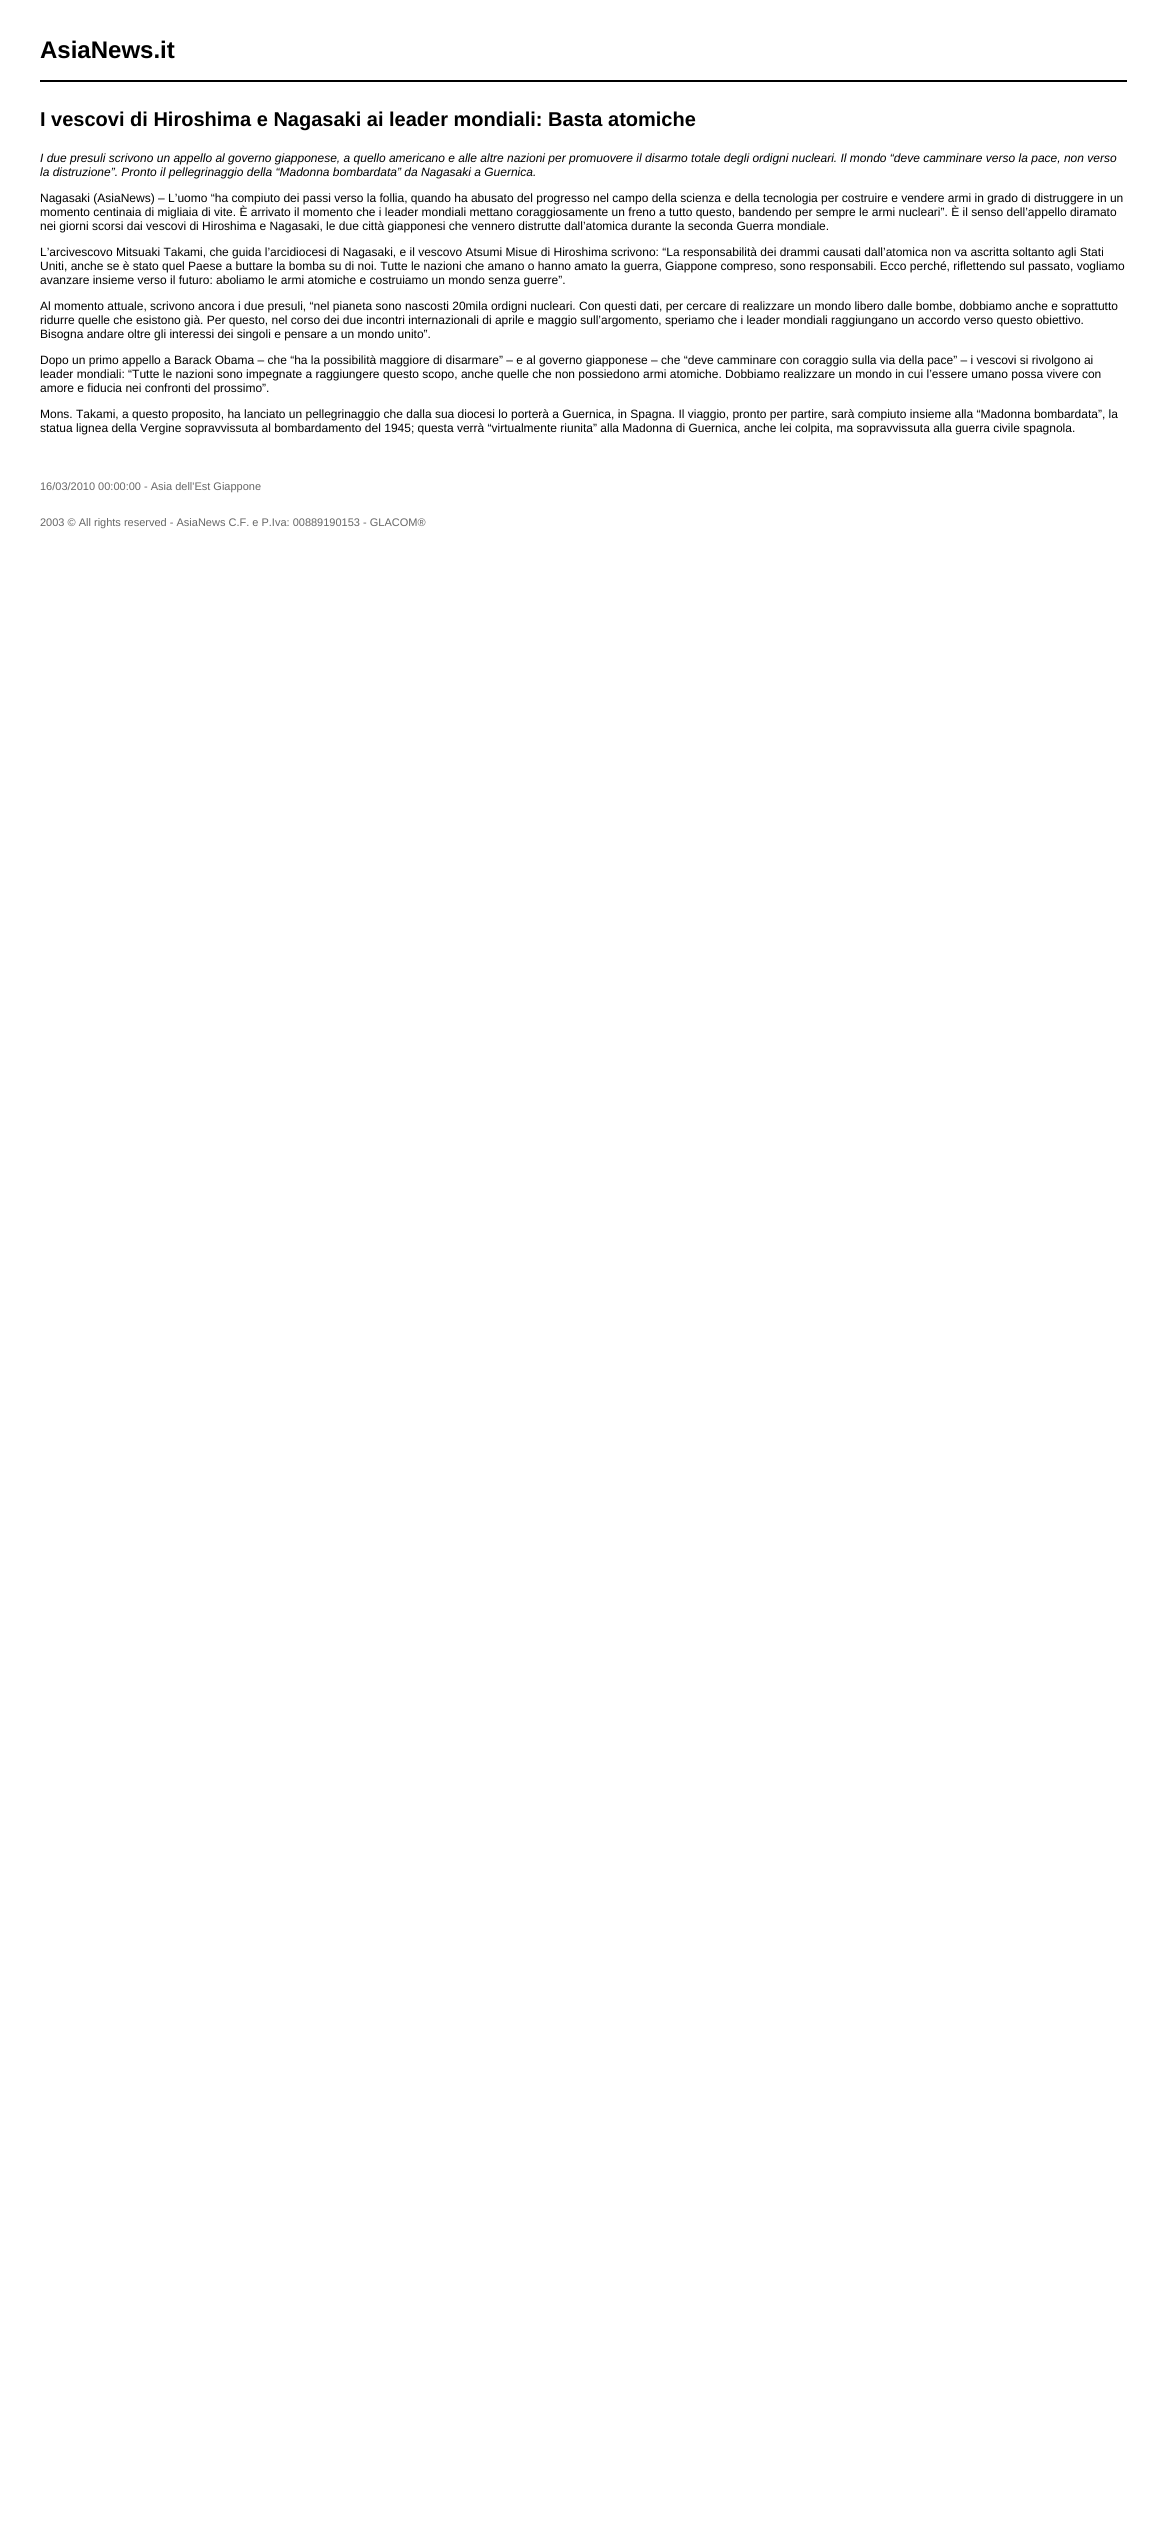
import math
import cairocffi as cairo

surface = cairo.ImageSurface(cairo.FORMAT_RGB24, 1167, 2521)
cr = cairo.Context(surface)
options = cairo.FontOptions()
options.set_hint_metrics(cairo.HINT_METRICS_OFF)
options.set_hint_style(cairo.HINT_STYLE_NONE)
cr.set_font_options(options)
cr.set_miter_limit(4)


def use_color(code):
    cr.set_source_rgb(*(v / 255 for v in bytes.fromhex(code[-6:])))


use_color("#ffffff")
cr.paint()
cr.select_font_face("Liberation Sans", cairo.FONT_SLANT_NORMAL, cairo.FONT_WEIGHT_BOLD)
cr.set_font_size(24)
use_color("#000000")
cr.move_to(40, 58)
cr.show_text("AsiaNews.it")
cr.rectangle(40, 80, 1087, 2)
cr.fill()
cr.set_font_size(20)
cr.move_to(40, 126)
cr.show_text("I vescovi di Hiroshima e Nagasaki ai leader mondiali: Basta atomiche")
cr.select_font_face("Liberation Sans", cairo.FONT_SLANT_ITALIC)
cr.set_font_size(12)
cr.move_to(40, 162)
cr.show_text("I due presuli scrivono un appello al governo giapponese, a quello americano e alle altre nazioni per promuovere il disarmo totale degli ordigni nucleari. Il mondo “deve camminare verso la pace, non verso")
cr.move_to(40, 176)
cr.show_text("la distruzione”. Pronto il pellegrinaggio della “Madonna bombardata” da Nagasaki a Guernica.")
cr.select_font_face("Liberation Sans")
cr.move_to(40, 202)
cr.show_text("Nagasaki (AsiaNews) – L’uomo “ha compiuto dei passi verso la follia, quando ha abusato del progresso nel campo della scienza e della tecnologia per costruire e vendere armi in grado di distruggere in un")
cr.move_to(40, 216)
cr.show_text("momento centinaia di migliaia di vite. È arrivato il momento che i leader mondiali mettano coraggiosamente un freno a tutto questo, bandendo per sempre le armi nucleari”. È il senso dell’appello diramato")
cr.move_to(40, 230)
cr.show_text("nei giorni scorsi dai vescovi di Hiroshima e Nagasaki, le due città giapponesi che vennero distrutte dall’atomica durante la seconda Guerra mondiale.")
cr.move_to(40, 256)
cr.show_text("L’arcivescovo Mitsuaki Takami, che guida l’arcidiocesi di Nagasaki, e il vescovo Atsumi Misue di Hiroshima scrivono: “La responsabilità dei drammi causati dall’atomica non va ascritta soltanto agli Stati")
cr.move_to(40, 270)
cr.show_text("Uniti, anche se è stato quel Paese a buttare la bomba su di noi. Tutte le nazioni che amano o hanno amato la guerra, Giappone compreso, sono responsabili. Ecco perché, riflettendo sul passato, vogliamo")
cr.move_to(40, 284)
cr.show_text("avanzare insieme verso il futuro: aboliamo le armi atomiche e costruiamo un mondo senza guerre”.")
cr.move_to(40, 310)
cr.show_text("Al momento attuale, scrivono ancora i due presuli, “nel pianeta sono nascosti 20mila ordigni nucleari. Con questi dati, per cercare di realizzare un mondo libero dalle bombe, dobbiamo anche e soprattutto")
cr.move_to(40, 324)
cr.show_text("ridurre quelle che esistono già. Per questo, nel corso dei due incontri internazionali di aprile e maggio sull’argomento, speriamo che i leader mondiali raggiungano un accordo verso questo obiettivo.")
cr.move_to(40, 338)
cr.show_text("Bisogna andare oltre gli interessi dei singoli e pensare a un mondo unito”.")
cr.move_to(40, 364)
cr.show_text("Dopo un primo appello a Barack Obama – che “ha la possibilità maggiore di disarmare” – e al governo giapponese – che “deve camminare con coraggio sulla via della pace” – i vescovi si rivolgono ai")
cr.move_to(40, 378)
cr.show_text("leader mondiali: “Tutte le nazioni sono impegnate a raggiungere questo scopo, anche quelle che non possiedono armi atomiche. Dobbiamo realizzare un mondo in cui l’essere umano possa vivere con")
cr.move_to(40, 392)
cr.show_text("amore e fiducia nei confronti del prossimo”.")
cr.move_to(40, 418)
cr.show_text("Mons. Takami, a questo proposito, ha lanciato un pellegrinaggio che dalla sua diocesi lo porterà a Guernica, in Spagna. Il viaggio, pronto per partire, sarà compiuto insieme alla “Madonna bombardata”, la")
cr.move_to(40, 432)
cr.show_text("statua lignea della Vergine sopravvissuta al bombardamento del 1945; questa verrà “virtualmente riunita” alla Madonna di Guernica, anche lei colpita, ma sopravvissuta alla guerra civile spagnola.")
cr.set_font_size(11)
use_color("#666666")
cr.move_to(40, 490)
cr.show_text("16/03/2010 00:00:00 - Asia dell'Est Giappone")
cr.move_to(40, 526)
cr.show_text("2003 © All rights reserved - AsiaNews C.F. e P.Iva: 00889190153 - GLACOM®")
surface.write_to_png("result.png")
